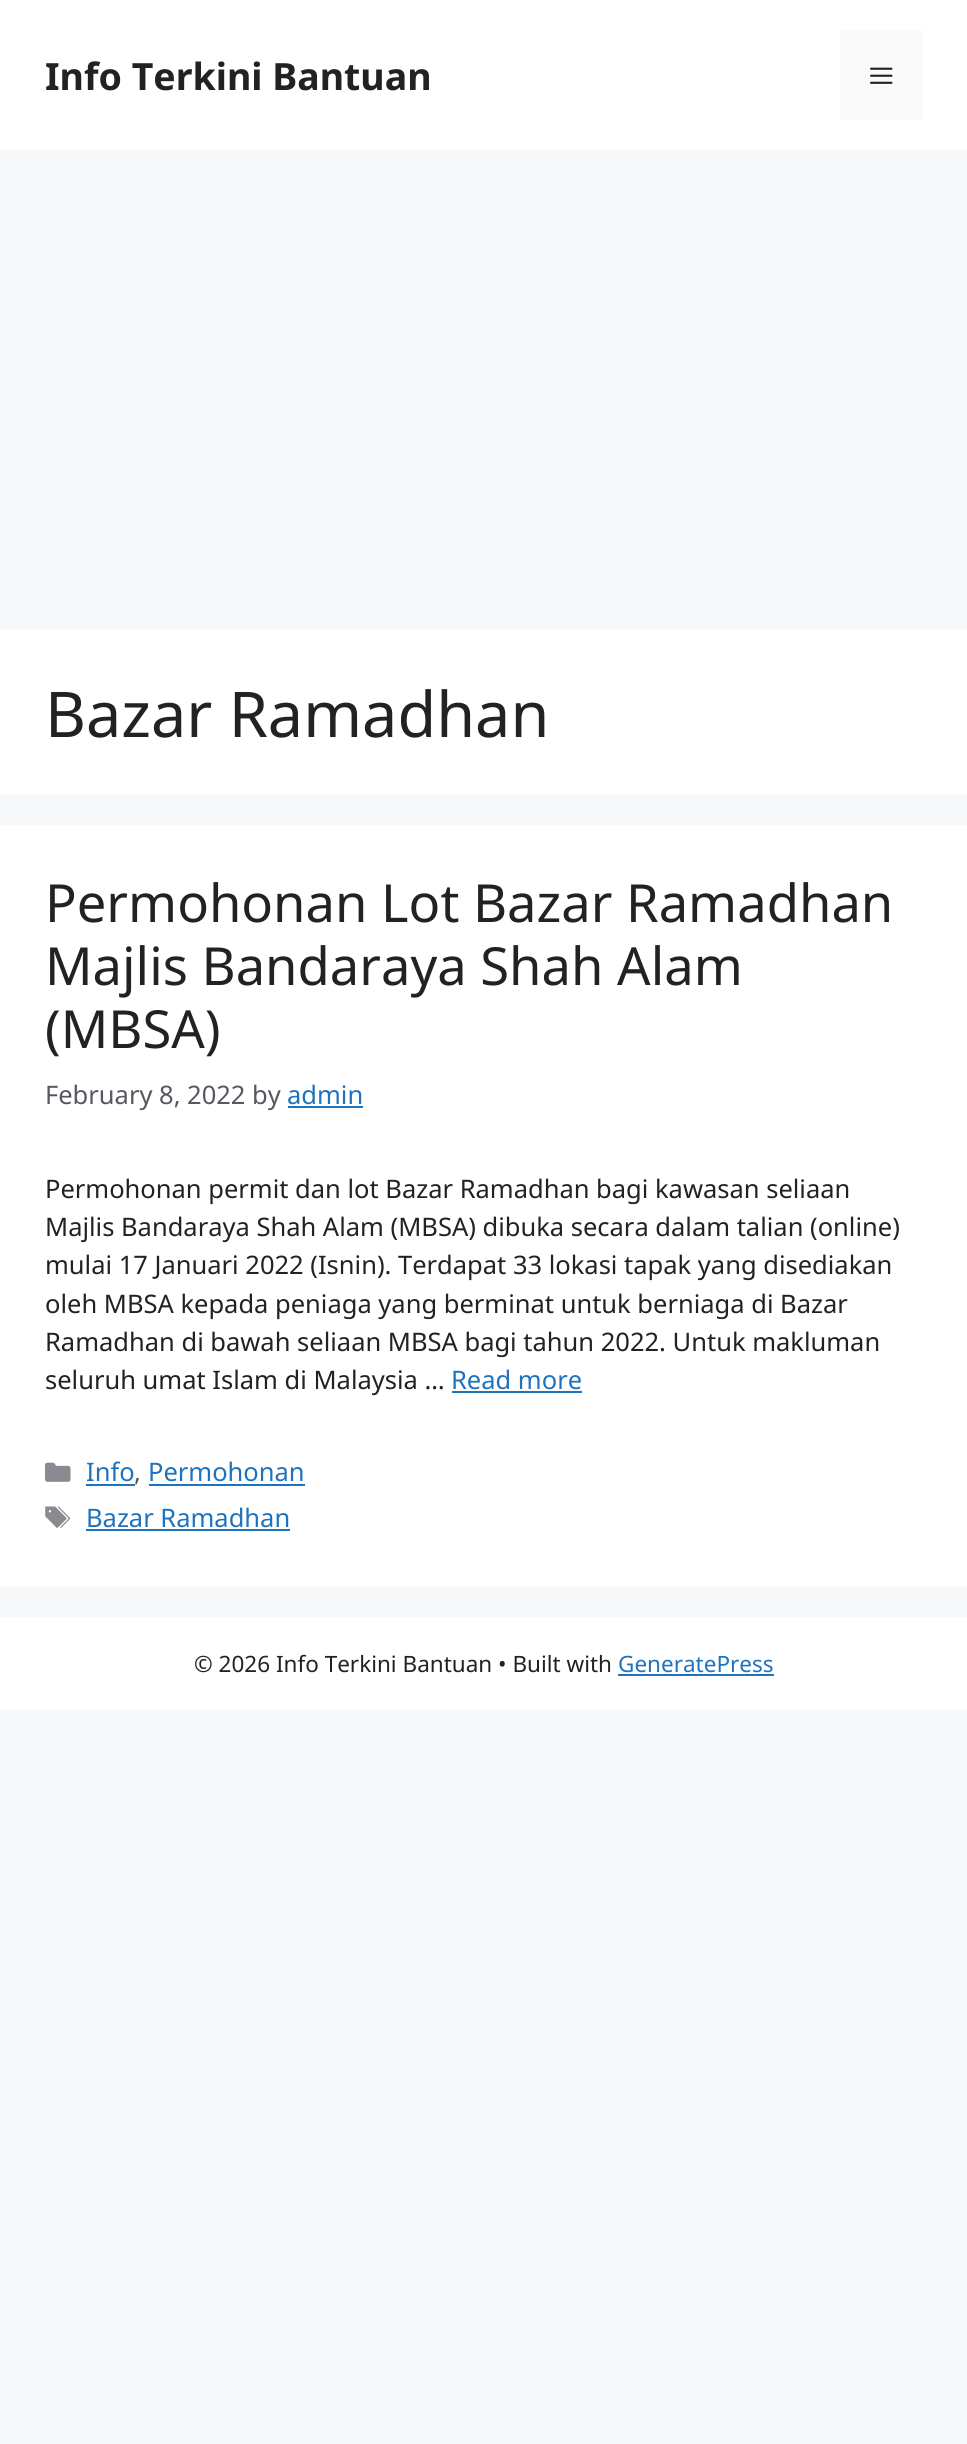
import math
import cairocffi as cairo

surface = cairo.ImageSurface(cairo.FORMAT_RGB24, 967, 2444)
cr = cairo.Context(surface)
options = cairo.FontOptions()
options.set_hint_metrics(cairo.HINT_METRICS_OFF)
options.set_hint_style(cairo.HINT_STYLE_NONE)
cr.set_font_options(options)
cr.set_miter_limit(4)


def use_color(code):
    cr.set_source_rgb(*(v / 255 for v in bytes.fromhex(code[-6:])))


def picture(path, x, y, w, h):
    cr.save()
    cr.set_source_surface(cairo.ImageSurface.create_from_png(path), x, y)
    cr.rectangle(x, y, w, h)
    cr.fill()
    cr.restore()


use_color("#f7f8f9")
cr.paint()
use_color("#ffffff")
cr.rectangle(0, 0, 967, 150)
cr.fill()
cr.select_font_face("Noto Sans", cairo.FONT_SLANT_NORMAL, cairo.FONT_WEIGHT_BOLD)
cr.set_font_size(37.5)
use_color("#222222")
cr.move_to(45, 90)
cr.show_text("Info Terkini Bantuan")
use_color("#fafafa")
cr.rectangle(840, 30, 83, 90)
cr.fill()
picture("img1.png", 870, 67, 23, 17)
use_color("#ffffff")
cr.rectangle(0, 630, 967, 165)
cr.fill()
cr.select_font_face("Noto Sans")
cr.set_font_size(63)
use_color("#222222")
cr.move_to(45, 737)
cr.show_text("Bazar Ramadhan")
use_color("#ffffff")
cr.rectangle(0, 825, 967, 762)
cr.fill()
cr.set_font_size(52.5)
use_color("#222222")
cr.move_to(45, 922)
cr.show_text("Permohonan Lot Bazar Ramadhan")
cr.move_to(45, 985)
cr.show_text("Majlis Bandaraya Shah Alam")
cr.move_to(45, 1048)
cr.show_text("(MBSA)")
cr.set_font_size(25.5)
use_color("#575760")
cr.move_to(45, 1104)
cr.show_text("February 8, 2022 by")
use_color("#1e73be")
cr.move_to(287, 1104)
cr.show_text("admin")
cr.rectangle(288, 1106, 75, 2)
cr.fill()
use_color("#222222")
cr.move_to(45, 1198)
cr.show_text("Permohonan permit dan lot Bazar Ramadhan bagi kawasan seliaan")
cr.move_to(45, 1236)
cr.show_text("Majlis Bandaraya Shah Alam (MBSA) dibuka secara dalam talian (online)")
cr.move_to(45, 1274)
cr.show_text("mulai 17 Januari 2022 (Isnin). Terdapat 33 lokasi tapak yang disediakan")
cr.move_to(45, 1313)
cr.show_text("oleh MBSA kepada peniaga yang berminat untuk berniaga di Bazar")
cr.move_to(45, 1351)
cr.show_text("Ramadhan di bawah seliaan MBSA bagi tahun 2022. Untuk makluman")
cr.move_to(45, 1389)
cr.show_text("seluruh umat Islam di Malaysia …")
use_color("#1e73be")
cr.move_to(451, 1389)
cr.show_text("Read more")
cr.rectangle(452, 1391, 130, 2)
cr.fill()
picture("img2.png", 45, 1462, 26, 20)
cr.move_to(86, 1481)
cr.show_text("Info")
cr.rectangle(86, 1484, 49, 2)
cr.fill()
use_color("#575760")
cr.move_to(134, 1481)
cr.show_text(",")
use_color("#1e73be")
cr.move_to(148, 1481)
cr.show_text("Permohonan")
cr.rectangle(149, 1484, 156, 2)
cr.fill()
picture("img3.png", 45, 1506, 26, 22)
cr.move_to(86, 1527)
cr.show_text("Bazar Ramadhan")
cr.rectangle(86, 1529, 204, 2)
cr.fill()
use_color("#ffffff")
cr.rectangle(0, 1617, 967, 93)
cr.fill()
cr.set_font_size(22.5)
use_color("#222222")
cr.move_to(194, 1672)
cr.show_text("© 2026 Info Terkini Bantuan • Built with")
use_color("#1e73be")
cr.move_to(618, 1672)
cr.show_text("GeneratePress")
cr.rectangle(618, 1674, 156, 2)
cr.fill()
surface.write_to_png("result.png")
